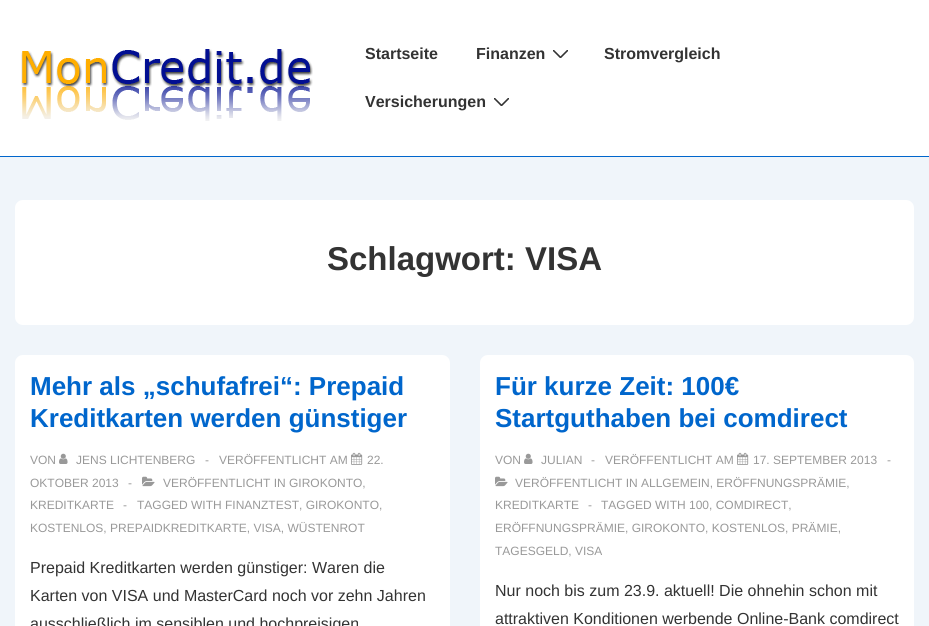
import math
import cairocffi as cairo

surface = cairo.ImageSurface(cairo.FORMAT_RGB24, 929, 626)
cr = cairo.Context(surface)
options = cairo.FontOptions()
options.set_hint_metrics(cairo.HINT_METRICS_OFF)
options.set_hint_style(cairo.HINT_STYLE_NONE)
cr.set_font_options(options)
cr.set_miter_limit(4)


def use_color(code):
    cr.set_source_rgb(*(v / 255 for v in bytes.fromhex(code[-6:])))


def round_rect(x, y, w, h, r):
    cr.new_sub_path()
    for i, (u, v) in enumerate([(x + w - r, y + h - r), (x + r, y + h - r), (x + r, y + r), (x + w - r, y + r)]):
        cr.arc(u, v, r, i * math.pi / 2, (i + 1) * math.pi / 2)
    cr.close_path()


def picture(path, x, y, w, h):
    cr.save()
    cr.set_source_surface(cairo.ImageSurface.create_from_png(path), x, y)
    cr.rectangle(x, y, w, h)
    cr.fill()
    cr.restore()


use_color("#f0f5fa")
cr.paint()
use_color("#ffffff")
cr.rectangle(0, 0, 929, 156)
cr.fill()
use_color("#0066cc")
cr.rectangle(0, 156, 929, 1)
cr.fill()
picture("img1.png", 21, 49, 292, 72)
cr.select_font_face("Liberation Sans", cairo.FONT_SLANT_NORMAL, cairo.FONT_WEIGHT_BOLD)
cr.set_font_size(16)
use_color("#333333")
cr.move_to(365, 59)
cr.show_text("Startseite")
cr.move_to(476, 59)
cr.show_text("Finanzen")
cr.save()
cr.rectangle(553, 50, 15, 8)
cr.clip()
cr.new_path()
cr.move_to(553.5, 50.5)
cr.line_to(560.5, 57.5)
cr.line_to(567.5, 50.5)
cr.set_line_width(1.6)
cr.set_line_cap(cairo.LINE_CAP_ROUND)
cr.stroke()
cr.restore()
cr.move_to(604, 59)
cr.show_text("Stromvergleich")
cr.move_to(365, 107)
cr.show_text("Versicherungen")
cr.save()
cr.rectangle(494, 98, 15, 8)
cr.clip()
cr.new_path()
cr.move_to(494.5, 98.5)
cr.line_to(501.5, 105.5)
cr.line_to(508.5, 98.5)
cr.set_line_width(1.6)
cr.set_line_cap(cairo.LINE_CAP_ROUND)
cr.stroke()
cr.restore()
use_color("#ffffff")
round_rect(15, 200, 899, 125, 8)
cr.fill()
cr.set_font_size(33)
use_color("#333333")
cr.move_to(327, 270)
cr.show_text("Schlagwort: VISA")
use_color("#ffffff")
round_rect(15, 355, 435, 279, 8)
cr.fill()
cr.set_font_size(26)
use_color("#0066cc")
cr.move_to(30, 395)
cr.show_text("Mehr als „schufafrei“: Prepaid")
cr.move_to(30, 427)
cr.show_text("Kreditkarten werden günstiger")
cr.select_font_face("Liberation Sans")
cr.set_font_size(12)
use_color("#999999")
cr.move_to(30, 464)
cr.show_text("VON")
picture("img2.png", 59, 453, 9, 11)
cr.move_to(76, 464)
cr.show_text("JENS LICHTENBERG")
cr.move_to(205, 464)
cr.show_text("-")
cr.move_to(219, 464)
cr.show_text("VERÖFFENTLICHT AM")
picture("img3.png", 351, 452, 12, 13)
cr.move_to(367, 464)
cr.show_text("22.")
cr.move_to(30, 487)
cr.show_text("OKTOBER 2013")
cr.move_to(128, 487)
cr.show_text("-")
picture("img4.png", 142, 476, 13, 11)
cr.move_to(163, 487)
cr.show_text("VERÖFFENTLICHT IN GIROKONTO,")
cr.move_to(30, 509)
cr.show_text("KREDITKARTE")
cr.move_to(123, 509)
cr.show_text("-")
cr.move_to(137, 509)
cr.show_text("TAGGED WITH FINANZTEST, GIROKONTO,")
cr.move_to(30, 532)
cr.show_text("KOSTENLOS, PREPAIDKREDITKARTE, VISA, WÜSTENROT")
cr.set_font_size(16)
use_color("#333333")
cr.move_to(30, 573)
cr.show_text("Prepaid Kreditkarten werden günstiger: Waren die")
cr.move_to(30, 601)
cr.show_text("Karten von VISA und MasterCard noch vor zehn Jahren")
cr.move_to(30, 629)
cr.show_text("ausschließlich im sensiblen und hochpreisigen")
use_color("#ffffff")
round_rect(480, 355, 434, 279, 8)
cr.fill()
cr.select_font_face("Liberation Sans", cairo.FONT_SLANT_NORMAL, cairo.FONT_WEIGHT_BOLD)
cr.set_font_size(26)
use_color("#0066cc")
cr.move_to(495, 395)
cr.show_text("Für kurze Zeit: 100€")
cr.move_to(495, 427)
cr.show_text("Startguthaben bei comdirect")
cr.select_font_face("Liberation Sans")
cr.set_font_size(12)
use_color("#999999")
cr.move_to(495, 464)
cr.show_text("VON")
picture("img2.png", 524, 453, 9, 11)
cr.move_to(541, 464)
cr.show_text("JULIAN")
cr.move_to(591, 464)
cr.show_text("-")
cr.move_to(605, 464)
cr.show_text("VERÖFFENTLICHT AM")
picture("img3.png", 737, 452, 12, 13)
cr.move_to(753, 464)
cr.show_text("17. SEPTEMBER 2013")
cr.move_to(887, 464)
cr.show_text("-")
picture("img4.png", 495, 476, 13, 11)
cr.move_to(515, 487)
cr.show_text("VERÖFFENTLICHT IN ALLGEMEIN, ERÖFFNUNGSPRÄMIE,")
cr.move_to(495, 509)
cr.show_text("KREDITKARTE")
cr.move_to(588, 509)
cr.show_text("-")
cr.move_to(601, 509)
cr.show_text("TAGGED WITH 100, COMDIRECT,")
cr.move_to(495, 532)
cr.show_text("ERÖFFNUNGSPRÄMIE, GIROKONTO, KOSTENLOS, PRÄMIE,")
cr.move_to(495, 555)
cr.show_text("TAGESGELD, VISA")
cr.set_font_size(16)
use_color("#333333")
cr.move_to(495, 596)
cr.show_text("Nur noch bis zum 23.9. aktuell! Die ohnehin schon mit")
cr.move_to(495, 624)
cr.show_text("attraktiven Konditionen werbende Online-Bank comdirect")
surface.write_to_png("result.png")
